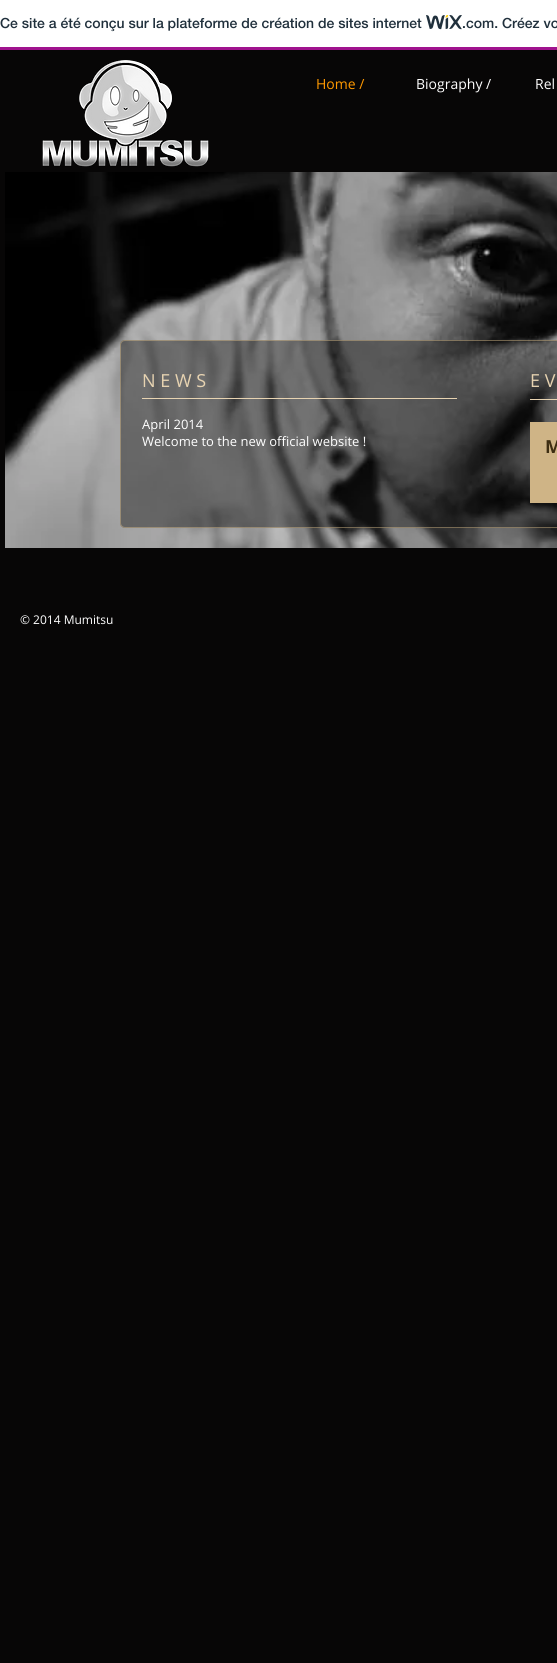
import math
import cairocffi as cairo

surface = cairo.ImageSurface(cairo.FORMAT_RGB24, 557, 1663)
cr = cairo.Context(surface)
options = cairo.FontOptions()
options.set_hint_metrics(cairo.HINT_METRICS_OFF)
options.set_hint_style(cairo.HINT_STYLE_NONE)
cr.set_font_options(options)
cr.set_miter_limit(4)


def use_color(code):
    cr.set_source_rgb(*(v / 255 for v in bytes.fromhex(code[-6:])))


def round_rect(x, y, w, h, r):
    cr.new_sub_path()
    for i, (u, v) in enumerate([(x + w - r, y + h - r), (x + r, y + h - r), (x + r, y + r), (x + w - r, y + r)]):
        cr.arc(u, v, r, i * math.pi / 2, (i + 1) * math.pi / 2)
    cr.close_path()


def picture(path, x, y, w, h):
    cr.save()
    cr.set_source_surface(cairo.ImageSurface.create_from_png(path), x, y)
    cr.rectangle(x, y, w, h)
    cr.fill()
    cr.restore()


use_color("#ffffff")
cr.paint()
use_color("#a0138e")
cr.rectangle(0, 47, 557, 3)
cr.fill()
cr.select_font_face("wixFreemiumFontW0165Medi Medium")
cr.set_font_size(14)
use_color("#20303c")
cr.move_to(0, 28)
cr.show_text("Ce site a été conçu sur la plateforme de création de sites internet")
picture("img1.png", 426, 15, 36, 15)
cr.move_to(462, 28)
cr.show_text(".com. Créez vo")
use_color("#070606")
cr.rectangle(0, 50, 557, 1613)
cr.fill()
picture("img2.png", 42, 60, 167, 107)
cr.select_font_face("Open Sans")
use_color("#ff9900")
cr.move_to(316, 89)
cr.show_text("Home /")
use_color("#ffffff")
cr.move_to(416, 89)
cr.show_text("Biography /")
cr.move_to(535, 89)
cr.show_text("Rel")
picture("img3.png", 5, 172, 552, 376)
cr.set_source_rgba(0.027, 0.024, 0.024, 0.4)
round_rect(120, 340, 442, 188, 5)
cr.fill()
round_rect(120.5, 340.5, 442, 187, 4.5)
cr.set_source_rgba(0.812, 0.706, 0.525, 0.5)
cr.set_line_width(1)
cr.stroke()
cr.set_font_size(18)
use_color("#e7d3b1")
cr.move_to(142, 387)
cr.show_text("N E W S")
cr.move_to(530, 387)
cr.show_text("E V")
cr.rectangle(142, 398, 315, 1)
cr.fill()
cr.rectangle(530, 399, 27, 1)
cr.fill()
cr.set_font_size(13)
use_color("#ffffff")
cr.move_to(142, 429)
cr.show_text("April 2014")
cr.move_to(142, 446)
cr.show_text("Welcome to the new official website !")
use_color("#cfb486")
cr.rectangle(530, 422, 27, 81)
cr.fill()
cr.select_font_face("Open Sans", cairo.FONT_SLANT_NORMAL, cairo.FONT_WEIGHT_BOLD)
cr.set_font_size(18)
use_color("#3d2d12")
cr.move_to(545, 453)
cr.show_text("M")
cr.select_font_face("Open Sans")
cr.set_font_size(12)
use_color("#ffffff")
cr.move_to(20, 624)
cr.show_text("© 2014 Mumitsu")
surface.write_to_png("result.png")
